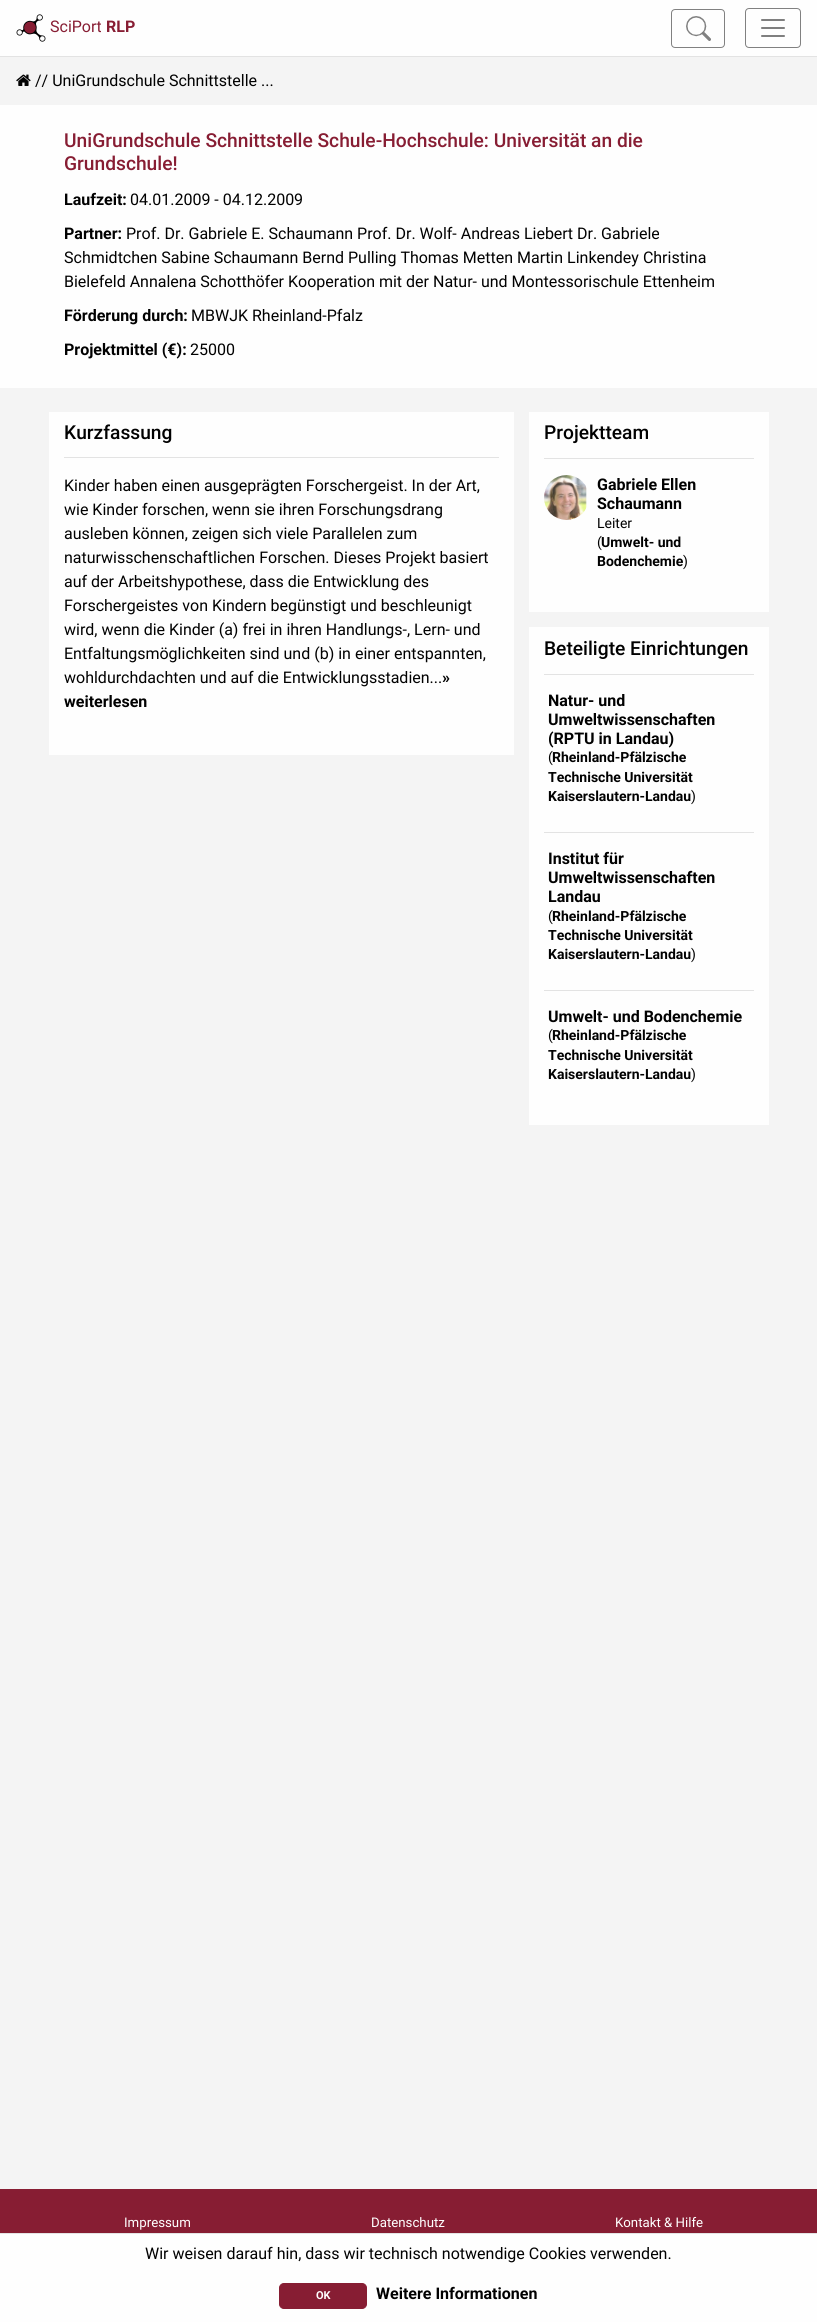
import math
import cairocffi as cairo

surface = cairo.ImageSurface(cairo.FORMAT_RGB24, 817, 2322)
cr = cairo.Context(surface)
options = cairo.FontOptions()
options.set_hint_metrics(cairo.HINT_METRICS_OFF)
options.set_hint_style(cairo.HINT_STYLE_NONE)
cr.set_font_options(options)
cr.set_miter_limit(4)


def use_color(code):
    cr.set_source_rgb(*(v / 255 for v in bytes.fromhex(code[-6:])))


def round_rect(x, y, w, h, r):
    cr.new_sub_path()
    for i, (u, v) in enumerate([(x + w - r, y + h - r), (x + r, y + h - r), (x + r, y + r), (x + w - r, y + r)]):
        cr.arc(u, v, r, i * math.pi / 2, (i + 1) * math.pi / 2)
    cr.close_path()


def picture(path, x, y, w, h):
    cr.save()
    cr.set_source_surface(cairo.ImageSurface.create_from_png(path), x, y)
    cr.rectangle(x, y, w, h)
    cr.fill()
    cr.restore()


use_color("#f4f4f4")
cr.paint()
use_color("#fefefe")
cr.rectangle(0, 0, 817, 56)
cr.fill()
use_color("#e3e3e3")
cr.rectangle(0, 56, 817, 1)
cr.fill()
picture("img1.png", 16, 14, 30, 28)
cr.select_font_face("Roboto")
cr.set_font_size(16)
use_color("#871d33")
cr.move_to(50, 32)
cr.show_text("SciPort")
cr.select_font_face("Roboto", cairo.FONT_SLANT_NORMAL, cairo.FONT_WEIGHT_BOLD)
cr.move_to(106, 32)
cr.show_text("RLP")
round_rect(671.5, 9.5, 53, 38, 3.5)
use_color("#818181")
cr.set_line_width(1)
cr.stroke()
picture("img2.png", 686, 16, 25, 25)
round_rect(745.5, 8.5, 55, 39, 3.5)
cr.stroke()
picture("img3.png", 761, 19, 24, 18)
picture("img4.png", 16, 74, 15, 12)
cr.select_font_face("Roboto")
use_color("#010101")
cr.move_to(35, 86)
cr.show_text("// UniGrundschule Schnittstelle ...")
use_color("#fefefe")
cr.rectangle(0, 105, 817, 283)
cr.fill()
cr.select_font_face("Roboto Medium")
cr.set_font_size(19.2)
use_color("#871d33")
cr.move_to(64, 147)
cr.show_text("UniGrundschule Schnittstelle Schule-Hochschule: Universität an die")
cr.move_to(64, 170)
cr.show_text("Grundschule!")
cr.select_font_face("Roboto", cairo.FONT_SLANT_NORMAL, cairo.FONT_WEIGHT_BOLD)
cr.set_font_size(16)
use_color("#010101")
cr.move_to(64, 205)
cr.show_text("Laufzeit:")
cr.select_font_face("Roboto")
cr.move_to(130, 205)
cr.show_text("04.01.2009 - 04.12.2009")
cr.select_font_face("Roboto", cairo.FONT_SLANT_NORMAL, cairo.FONT_WEIGHT_BOLD)
cr.move_to(64, 239)
cr.show_text("Partner:")
cr.select_font_face("Roboto")
cr.move_to(126, 239)
cr.show_text("Prof. Dr. Gabriele E. Schaumann Prof. Dr. Wolf- Andreas Liebert Dr. Gabriele")
cr.move_to(64, 263)
cr.show_text("Schmidtchen Sabine Schaumann Bernd Pulling Thomas Metten Martin Linkendey Christina")
cr.move_to(64, 287)
cr.show_text("Bielefeld Annalena Schotthöfer Kooperation mit der Natur- und Montessorischule Ettenheim")
cr.select_font_face("Roboto", cairo.FONT_SLANT_NORMAL, cairo.FONT_WEIGHT_BOLD)
cr.move_to(64, 321)
cr.show_text("Förderung durch:")
cr.select_font_face("Roboto")
cr.move_to(191, 321)
cr.show_text("MBWJK Rheinland-Pfalz")
cr.select_font_face("Roboto", cairo.FONT_SLANT_NORMAL, cairo.FONT_WEIGHT_BOLD)
cr.move_to(64, 355)
cr.show_text("Projektmittel (€):")
cr.select_font_face("Roboto")
cr.move_to(190, 355)
cr.show_text("25000")
use_color("#fefefe")
cr.rectangle(49, 412, 465, 343)
cr.fill()
cr.select_font_face("Roboto Medium")
cr.set_font_size(19.2)
use_color("#010101")
cr.move_to(64, 439)
cr.show_text("Kurzfassung")
use_color("#e3e3e3")
cr.rectangle(64, 457, 435, 1)
cr.fill()
cr.select_font_face("Roboto")
cr.set_font_size(16)
use_color("#010101")
cr.move_to(64, 491)
cr.show_text("Kinder haben einen ausgeprägten Forschergeist. In der Art,")
cr.move_to(64, 515)
cr.show_text("wie Kinder forschen, wenn sie ihren Forschungsdrang")
cr.move_to(64, 539)
cr.show_text("ausleben können, zeigen sich viele Parallelen zum")
cr.move_to(64, 563)
cr.show_text("naturwisschenschaftlichen Forschen. Dieses Projekt basiert")
cr.move_to(64, 587)
cr.show_text("auf der Arbeitshypothese, dass die Entwicklung des")
cr.move_to(64, 611)
cr.show_text("Forschergeistes von Kindern begünstigt und beschleunigt")
cr.move_to(64, 635)
cr.show_text("wird, wenn die Kinder (a) frei in ihren Handlungs-, Lern- und")
cr.move_to(64, 659)
cr.show_text("Entfaltungsmöglichkeiten sind und (b) in einer entspannten,")
cr.move_to(64, 683)
cr.show_text("wohldurchdachten und auf die Entwicklungsstadien...")
cr.select_font_face("Roboto", cairo.FONT_SLANT_NORMAL, cairo.FONT_WEIGHT_BOLD)
cr.move_to(442, 683)
cr.show_text("»")
cr.move_to(64, 707)
cr.show_text("weiterlesen")
use_color("#fefefe")
cr.rectangle(529, 412, 240, 200)
cr.fill()
cr.select_font_face("Roboto Medium")
cr.set_font_size(19.2)
use_color("#010101")
cr.move_to(544, 439)
cr.show_text("Projektteam")
use_color("#e3e3e3")
cr.rectangle(544, 458, 210, 1)
cr.fill()
picture("img5.png", 544, 475, 43, 45)
cr.select_font_face("Roboto", cairo.FONT_SLANT_NORMAL, cairo.FONT_WEIGHT_BOLD)
cr.set_font_size(16)
use_color("#010101")
cr.move_to(597, 490)
cr.show_text("Gabriele Ellen")
cr.move_to(597, 509)
cr.show_text("Schaumann")
cr.select_font_face("Roboto")
cr.set_font_size(14)
cr.move_to(597, 528)
cr.show_text("Leiter")
cr.move_to(597, 547)
cr.show_text("(")
cr.select_font_face("Roboto", cairo.FONT_SLANT_NORMAL, cairo.FONT_WEIGHT_BOLD)
cr.move_to(601, 547)
cr.show_text("Umwelt- und")
cr.move_to(597, 566)
cr.show_text("Bodenchemie")
cr.select_font_face("Roboto")
cr.move_to(683, 566)
cr.show_text(")")
use_color("#fefefe")
cr.rectangle(529, 627, 240, 498)
cr.fill()
cr.select_font_face("Roboto Medium")
cr.set_font_size(19.2)
use_color("#010101")
cr.move_to(544, 655)
cr.show_text("Beteiligte Einrichtungen")
use_color("#e3e3e3")
cr.rectangle(544, 674, 210, 1)
cr.fill()
cr.select_font_face("Roboto", cairo.FONT_SLANT_NORMAL, cairo.FONT_WEIGHT_BOLD)
cr.set_font_size(16)
use_color("#010101")
cr.move_to(548, 706)
cr.show_text("Natur- und")
cr.move_to(548, 725)
cr.show_text("Umweltwissenschaften")
cr.move_to(548, 744)
cr.show_text("(RPTU in Landau)")
cr.select_font_face("Roboto")
cr.set_font_size(14)
cr.move_to(548, 762)
cr.show_text("(")
cr.select_font_face("Roboto", cairo.FONT_SLANT_NORMAL, cairo.FONT_WEIGHT_BOLD)
cr.move_to(552, 762)
cr.show_text("Rheinland-Pfälzische")
cr.move_to(548, 782)
cr.show_text("Technische Universität")
cr.move_to(548, 801)
cr.show_text("Kaiserslautern-Landau")
cr.select_font_face("Roboto")
cr.move_to(691, 801)
cr.show_text(")")
use_color("#e3e3e3")
cr.rectangle(544, 832, 210, 1)
cr.fill()
cr.select_font_face("Roboto", cairo.FONT_SLANT_NORMAL, cairo.FONT_WEIGHT_BOLD)
cr.set_font_size(16)
use_color("#010101")
cr.move_to(548, 864)
cr.show_text("Institut für")
cr.move_to(548, 883)
cr.show_text("Umweltwissenschaften")
cr.move_to(548, 902)
cr.show_text("Landau")
cr.select_font_face("Roboto")
cr.set_font_size(14)
cr.move_to(548, 921)
cr.show_text("(")
cr.select_font_face("Roboto", cairo.FONT_SLANT_NORMAL, cairo.FONT_WEIGHT_BOLD)
cr.move_to(552, 921)
cr.show_text("Rheinland-Pfälzische")
cr.move_to(548, 940)
cr.show_text("Technische Universität")
cr.move_to(548, 959)
cr.show_text("Kaiserslautern-Landau")
cr.select_font_face("Roboto")
cr.move_to(691, 959)
cr.show_text(")")
use_color("#e3e3e3")
cr.rectangle(544, 990, 210, 1)
cr.fill()
cr.select_font_face("Roboto", cairo.FONT_SLANT_NORMAL, cairo.FONT_WEIGHT_BOLD)
cr.set_font_size(16)
use_color("#010101")
cr.move_to(548, 1022)
cr.show_text("Umwelt- und Bodenchemie")
cr.select_font_face("Roboto")
cr.set_font_size(14)
cr.move_to(548, 1040)
cr.show_text("(")
cr.select_font_face("Roboto", cairo.FONT_SLANT_NORMAL, cairo.FONT_WEIGHT_BOLD)
cr.move_to(552, 1040)
cr.show_text("Rheinland-Pfälzische")
cr.move_to(548, 1060)
cr.show_text("Technische Universität")
cr.move_to(548, 1079)
cr.show_text("Kaiserslautern-Landau")
cr.select_font_face("Roboto")
cr.move_to(691, 1079)
cr.show_text(")")
use_color("#871d33")
cr.rectangle(0, 2189, 817, 44)
cr.fill()
cr.set_font_size(13.25)
use_color("#ffffff")
cr.move_to(124, 2227)
cr.show_text("Impressum")
cr.move_to(371, 2227)
cr.show_text("Datenschutz")
cr.move_to(615, 2227)
cr.show_text("Kontakt & Hilfe")
use_color("#fefefe")
cr.rectangle(0, 2234, 817, 88)
cr.fill()
use_color("#e4e4e4")
cr.rectangle(0, 2233, 817, 1)
cr.fill()
cr.set_font_size(16)
use_color("#010101")
cr.move_to(145, 2259)
cr.show_text("Wir weisen darauf hin, dass wir technisch notwendige Cookies verwenden.")
use_color("#871d33")
round_rect(279.5, 2283.5, 87, 25, 4.5)
cr.fill_preserve()
cr.stroke()
cr.select_font_face("Roboto", cairo.FONT_SLANT_NORMAL, cairo.FONT_WEIGHT_BOLD)
cr.set_font_size(11)
use_color("#ffffff")
cr.move_to(316, 2299)
cr.show_text("OK")
cr.set_font_size(16)
use_color("#010101")
cr.move_to(376, 2299)
cr.show_text("Weitere Informationen")
surface.write_to_png("result.png")
